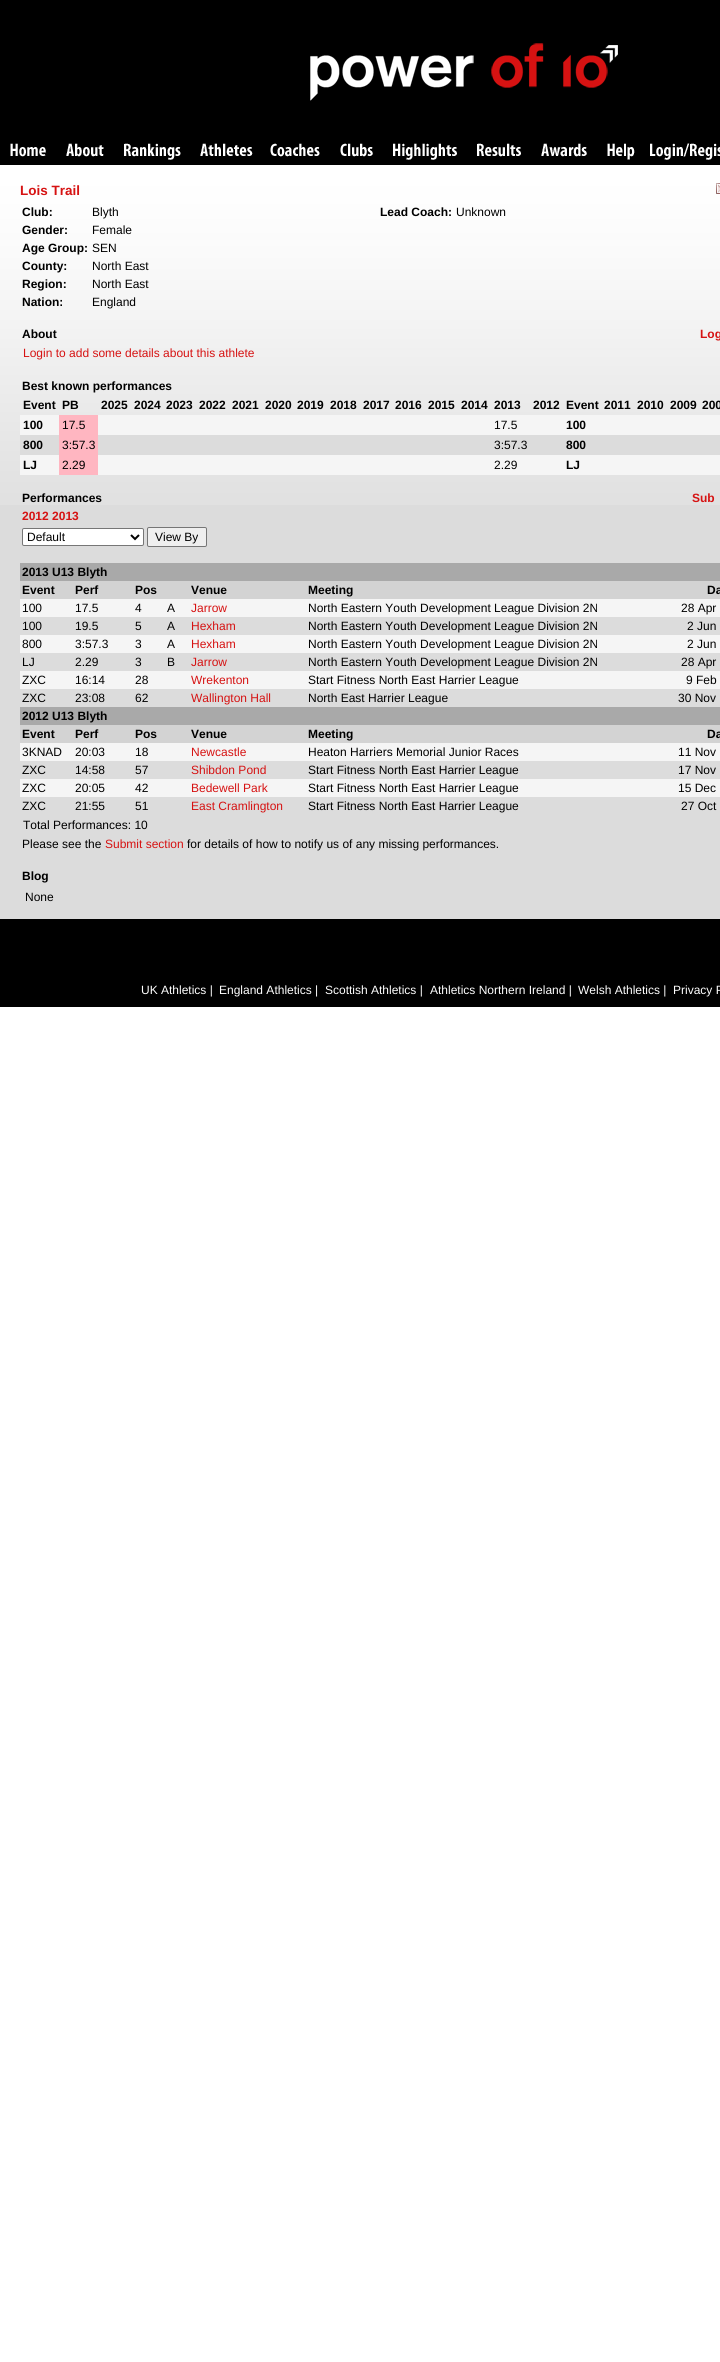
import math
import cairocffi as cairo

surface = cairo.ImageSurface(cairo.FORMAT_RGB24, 720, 2362)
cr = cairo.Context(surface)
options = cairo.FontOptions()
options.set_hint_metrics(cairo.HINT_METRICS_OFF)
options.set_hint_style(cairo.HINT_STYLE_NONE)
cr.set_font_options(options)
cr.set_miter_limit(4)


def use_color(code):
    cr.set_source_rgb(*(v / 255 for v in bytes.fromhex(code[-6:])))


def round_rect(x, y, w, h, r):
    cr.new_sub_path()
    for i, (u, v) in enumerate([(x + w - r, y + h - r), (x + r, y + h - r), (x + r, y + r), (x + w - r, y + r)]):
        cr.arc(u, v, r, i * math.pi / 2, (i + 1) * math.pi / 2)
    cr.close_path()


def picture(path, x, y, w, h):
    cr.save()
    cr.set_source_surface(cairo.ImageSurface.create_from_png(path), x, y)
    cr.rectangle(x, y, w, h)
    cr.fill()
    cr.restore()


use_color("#ffffff")
cr.paint()
use_color("#000000")
cr.rectangle(0, 0, 720, 165)
cr.fill()
picture("img1.png", 310, 43, 308, 58)
picture("img2.png", 10, 143, 36, 14)
picture("img3.png", 66, 143, 38, 14)
picture("img4.png", 124, 143, 57, 17)
picture("img5.png", 200, 143, 53, 13)
picture("img6.png", 270, 143, 50, 14)
picture("img7.png", 340, 143, 33, 14)
picture("img8.png", 393, 143, 64, 17)
picture("img9.png", 477, 143, 44, 14)
picture("img10.png", 541, 143, 46, 14)
picture("img11.png", 607, 143, 28, 17)
picture("img12.png", 650, 143, 70, 17)
use_color("#dcdcdc")
cr.rectangle(0, 505, 720, 414)
cr.fill()
picture("img13.png", 0, 175, 720, 330)
cr.select_font_face("Liberation Sans", cairo.FONT_SLANT_NORMAL, cairo.FONT_WEIGHT_BOLD)
cr.set_font_size(13.5)
use_color("#d61212")
cr.move_to(20, 195)
cr.show_text("Lois Trail")
picture("img14.png", 716, 183, 4, 11)
cr.set_font_size(12)
use_color("#000000")
cr.move_to(22, 216)
cr.show_text("Club:")
cr.select_font_face("Liberation Sans")
cr.move_to(92, 216)
cr.show_text("Blyth")
cr.select_font_face("Liberation Sans", cairo.FONT_SLANT_NORMAL, cairo.FONT_WEIGHT_BOLD)
cr.move_to(22, 234)
cr.show_text("Gender:")
cr.select_font_face("Liberation Sans")
cr.move_to(92, 234)
cr.show_text("Female")
cr.select_font_face("Liberation Sans", cairo.FONT_SLANT_NORMAL, cairo.FONT_WEIGHT_BOLD)
cr.move_to(22, 252)
cr.show_text("Age Group:")
cr.select_font_face("Liberation Sans")
cr.move_to(92, 252)
cr.show_text("SEN")
cr.select_font_face("Liberation Sans", cairo.FONT_SLANT_NORMAL, cairo.FONT_WEIGHT_BOLD)
cr.move_to(22, 270)
cr.show_text("County:")
cr.select_font_face("Liberation Sans")
cr.move_to(92, 270)
cr.show_text("North East")
cr.select_font_face("Liberation Sans", cairo.FONT_SLANT_NORMAL, cairo.FONT_WEIGHT_BOLD)
cr.move_to(22, 288)
cr.show_text("Region:")
cr.select_font_face("Liberation Sans")
cr.move_to(92, 288)
cr.show_text("North East")
cr.select_font_face("Liberation Sans", cairo.FONT_SLANT_NORMAL, cairo.FONT_WEIGHT_BOLD)
cr.move_to(22, 306)
cr.show_text("Nation:")
cr.select_font_face("Liberation Sans")
cr.move_to(92, 306)
cr.show_text("England")
cr.select_font_face("Liberation Sans", cairo.FONT_SLANT_NORMAL, cairo.FONT_WEIGHT_BOLD)
cr.move_to(380, 216)
cr.show_text("Lead Coach:")
cr.select_font_face("Liberation Sans")
cr.move_to(456, 216)
cr.show_text("Unknown")
cr.select_font_face("Liberation Sans", cairo.FONT_SLANT_NORMAL, cairo.FONT_WEIGHT_BOLD)
cr.move_to(22, 338)
cr.show_text("About")
use_color("#d61212")
cr.move_to(700, 338)
cr.show_text("Log")
cr.select_font_face("Liberation Sans")
cr.move_to(23, 357)
cr.show_text("Login to add some details about this athlete")
cr.select_font_face("Liberation Sans", cairo.FONT_SLANT_NORMAL, cairo.FONT_WEIGHT_BOLD)
use_color("#000000")
cr.move_to(22, 390)
cr.show_text("Best known performances")
cr.move_to(23, 409)
cr.show_text("Event")
cr.move_to(62, 409)
cr.show_text("PB")
cr.move_to(101, 409)
cr.show_text("2025")
cr.move_to(134, 409)
cr.show_text("2024")
cr.move_to(166, 409)
cr.show_text("2023")
cr.move_to(199, 409)
cr.show_text("2022")
cr.move_to(232, 409)
cr.show_text("2021")
cr.move_to(265, 409)
cr.show_text("2020")
cr.move_to(297, 409)
cr.show_text("2019")
cr.move_to(330, 409)
cr.show_text("2018")
cr.move_to(363, 409)
cr.show_text("2017")
cr.move_to(395, 409)
cr.show_text("2016")
cr.move_to(428, 409)
cr.show_text("2015")
cr.move_to(461, 409)
cr.show_text("2014")
cr.move_to(494, 409)
cr.show_text("2013")
cr.move_to(533, 409)
cr.show_text("2012")
cr.move_to(566, 409)
cr.show_text("Event")
cr.move_to(604, 409)
cr.show_text("2011")
cr.move_to(637, 409)
cr.show_text("2010")
cr.move_to(670, 409)
cr.show_text("2009")
cr.move_to(702, 409)
cr.show_text("200")
use_color("#f5f5f5")
cr.rectangle(20, 415, 700, 20)
cr.fill()
use_color("#000000")
cr.move_to(23, 429)
cr.show_text("100")
use_color("#ffb6c1")
cr.rectangle(59, 415, 39, 20)
cr.fill()
cr.select_font_face("Liberation Sans")
use_color("#000000")
cr.move_to(62, 429)
cr.show_text("17.5")
cr.move_to(494, 429)
cr.show_text("17.5")
cr.select_font_face("Liberation Sans", cairo.FONT_SLANT_NORMAL, cairo.FONT_WEIGHT_BOLD)
cr.move_to(566, 429)
cr.show_text("100")
use_color("#dcdcdc")
cr.rectangle(20, 435, 700, 20)
cr.fill()
use_color("#000000")
cr.move_to(23, 449)
cr.show_text("800")
use_color("#ffb6c1")
cr.rectangle(59, 435, 39, 20)
cr.fill()
cr.select_font_face("Liberation Sans")
use_color("#000000")
cr.move_to(62, 449)
cr.show_text("3:57.3")
cr.move_to(494, 449)
cr.show_text("3:57.3")
cr.select_font_face("Liberation Sans", cairo.FONT_SLANT_NORMAL, cairo.FONT_WEIGHT_BOLD)
cr.move_to(566, 449)
cr.show_text("800")
use_color("#f5f5f5")
cr.rectangle(20, 455, 700, 20)
cr.fill()
use_color("#000000")
cr.move_to(23, 469)
cr.show_text("LJ")
use_color("#ffb6c1")
cr.rectangle(59, 455, 39, 20)
cr.fill()
cr.select_font_face("Liberation Sans")
use_color("#000000")
cr.move_to(62, 469)
cr.show_text("2.29")
cr.move_to(494, 469)
cr.show_text("2.29")
cr.select_font_face("Liberation Sans", cairo.FONT_SLANT_NORMAL, cairo.FONT_WEIGHT_BOLD)
cr.move_to(566, 469)
cr.show_text("LJ")
cr.move_to(22, 502)
cr.show_text("Performances")
use_color("#d61212")
cr.move_to(692, 502)
cr.show_text("Sub")
cr.move_to(22, 520)
cr.show_text("2012 2013")
use_color("#ffffff")
round_rect(22.5, 528.5, 121, 17, 1.5)
cr.fill_preserve()
use_color("#767676")
cr.set_line_width(1)
cr.stroke()
cr.new_path()
cr.move_to(131, 535)
cr.line_to(135, 539)
cr.line_to(139, 535)
use_color("#000000")
cr.set_line_width(2)
cr.stroke()
cr.select_font_face("Liberation Sans")
cr.move_to(27, 541)
cr.show_text("Default")
use_color("#efefef")
round_rect(147.5, 527.5, 59, 19, 1.5)
cr.fill_preserve()
use_color("#767676")
cr.set_line_width(1)
cr.stroke()
use_color("#000000")
cr.move_to(155, 541)
cr.show_text("View By")
use_color("#a9a9a9")
cr.rectangle(20, 563, 700, 18)
cr.fill()
cr.select_font_face("Liberation Sans", cairo.FONT_SLANT_NORMAL, cairo.FONT_WEIGHT_BOLD)
use_color("#000000")
cr.move_to(22, 576)
cr.show_text("2013 U13 Blyth")
use_color("#d3d3d3")
cr.rectangle(20, 581, 700, 18)
cr.fill()
use_color("#000000")
cr.move_to(22, 594)
cr.show_text("Event")
cr.move_to(75, 594)
cr.show_text("Perf")
cr.move_to(135, 594)
cr.show_text("Pos")
cr.move_to(191, 594)
cr.show_text("Venue")
cr.move_to(308, 594)
cr.show_text("Meeting")
cr.move_to(707, 594)
cr.show_text("Da")
use_color("#f5f5f5")
cr.rectangle(20, 599, 700, 18)
cr.fill()
cr.select_font_face("Liberation Sans")
use_color("#000000")
cr.move_to(22, 612)
cr.show_text("100")
cr.move_to(75, 612)
cr.show_text("17.5")
cr.move_to(135, 612)
cr.show_text("4")
cr.move_to(167, 612)
cr.show_text("A")
use_color("#d61212")
cr.move_to(191, 612)
cr.show_text("Jarrow")
use_color("#000000")
cr.move_to(308, 612)
cr.show_text("North Eastern Youth Development League Division 2N")
cr.move_to(681, 612)
cr.show_text("28 Apr")
cr.move_to(22, 630)
cr.show_text("100")
cr.move_to(75, 630)
cr.show_text("19.5")
cr.move_to(135, 630)
cr.show_text("5")
cr.move_to(167, 630)
cr.show_text("A")
use_color("#d61212")
cr.move_to(191, 630)
cr.show_text("Hexham")
use_color("#000000")
cr.move_to(308, 630)
cr.show_text("North Eastern Youth Development League Division 2N")
cr.move_to(687, 630)
cr.show_text("2 Jun")
use_color("#f5f5f5")
cr.rectangle(20, 635, 700, 18)
cr.fill()
use_color("#000000")
cr.move_to(22, 648)
cr.show_text("800")
cr.move_to(75, 648)
cr.show_text("3:57.3")
cr.move_to(135, 648)
cr.show_text("3")
cr.move_to(167, 648)
cr.show_text("A")
use_color("#d61212")
cr.move_to(191, 648)
cr.show_text("Hexham")
use_color("#000000")
cr.move_to(308, 648)
cr.show_text("North Eastern Youth Development League Division 2N")
cr.move_to(687, 648)
cr.show_text("2 Jun")
cr.move_to(22, 666)
cr.show_text("LJ")
cr.move_to(75, 666)
cr.show_text("2.29")
cr.move_to(135, 666)
cr.show_text("3")
cr.move_to(167, 666)
cr.show_text("B")
use_color("#d61212")
cr.move_to(191, 666)
cr.show_text("Jarrow")
use_color("#000000")
cr.move_to(308, 666)
cr.show_text("North Eastern Youth Development League Division 2N")
cr.move_to(681, 666)
cr.show_text("28 Apr")
use_color("#f5f5f5")
cr.rectangle(20, 671, 700, 18)
cr.fill()
use_color("#000000")
cr.move_to(22, 684)
cr.show_text("ZXC")
cr.move_to(75, 684)
cr.show_text("16:14")
cr.move_to(135, 684)
cr.show_text("28")
use_color("#d61212")
cr.move_to(191, 684)
cr.show_text("Wrekenton")
use_color("#000000")
cr.move_to(308, 684)
cr.show_text("Start Fitness North East Harrier League")
cr.move_to(686, 684)
cr.show_text("9 Feb")
cr.move_to(22, 702)
cr.show_text("ZXC")
cr.move_to(75, 702)
cr.show_text("23:08")
cr.move_to(135, 702)
cr.show_text("62")
use_color("#d61212")
cr.move_to(191, 702)
cr.show_text("Wallington Hall")
use_color("#000000")
cr.move_to(308, 702)
cr.show_text("North East Harrier League")
cr.move_to(678, 702)
cr.show_text("30 Nov")
use_color("#a9a9a9")
cr.rectangle(20, 707, 700, 18)
cr.fill()
cr.select_font_face("Liberation Sans", cairo.FONT_SLANT_NORMAL, cairo.FONT_WEIGHT_BOLD)
use_color("#000000")
cr.move_to(22, 720)
cr.show_text("2012 U13 Blyth")
use_color("#d3d3d3")
cr.rectangle(20, 725, 700, 18)
cr.fill()
use_color("#000000")
cr.move_to(22, 738)
cr.show_text("Event")
cr.move_to(75, 738)
cr.show_text("Perf")
cr.move_to(135, 738)
cr.show_text("Pos")
cr.move_to(191, 738)
cr.show_text("Venue")
cr.move_to(308, 738)
cr.show_text("Meeting")
cr.move_to(707, 738)
cr.show_text("Da")
use_color("#f5f5f5")
cr.rectangle(20, 743, 700, 18)
cr.fill()
cr.select_font_face("Liberation Sans")
use_color("#000000")
cr.move_to(22, 756)
cr.show_text("3KNAD")
cr.move_to(75, 756)
cr.show_text("20:03")
cr.move_to(135, 756)
cr.show_text("18")
use_color("#d61212")
cr.move_to(191, 756)
cr.show_text("Newcastle")
use_color("#000000")
cr.move_to(308, 756)
cr.show_text("Heaton Harriers Memorial Junior Races")
cr.move_to(678, 756)
cr.show_text("11 Nov")
cr.move_to(22, 774)
cr.show_text("ZXC")
cr.move_to(75, 774)
cr.show_text("14:58")
cr.move_to(135, 774)
cr.show_text("57")
use_color("#d61212")
cr.move_to(191, 774)
cr.show_text("Shibdon Pond")
use_color("#000000")
cr.move_to(308, 774)
cr.show_text("Start Fitness North East Harrier League")
cr.move_to(678, 774)
cr.show_text("17 Nov")
use_color("#f5f5f5")
cr.rectangle(20, 779, 700, 18)
cr.fill()
use_color("#000000")
cr.move_to(22, 792)
cr.show_text("ZXC")
cr.move_to(75, 792)
cr.show_text("20:05")
cr.move_to(135, 792)
cr.show_text("42")
use_color("#d61212")
cr.move_to(191, 792)
cr.show_text("Bedewell Park")
use_color("#000000")
cr.move_to(308, 792)
cr.show_text("Start Fitness North East Harrier League")
cr.move_to(678, 792)
cr.show_text("15 Dec")
cr.move_to(22, 810)
cr.show_text("ZXC")
cr.move_to(75, 810)
cr.show_text("21:55")
cr.move_to(135, 810)
cr.show_text("51")
use_color("#d61212")
cr.move_to(191, 810)
cr.show_text("East Cramlington")
use_color("#000000")
cr.move_to(308, 810)
cr.show_text("Start Fitness North East Harrier League")
cr.move_to(681, 810)
cr.show_text("27 Oct")
cr.move_to(23, 829)
cr.show_text("Total Performances: 10")
cr.move_to(22, 848)
cr.show_text("Please see the")
use_color("#d61212")
cr.move_to(105, 848)
cr.show_text("Submit section")
use_color("#000000")
cr.move_to(187, 848)
cr.show_text("for details of how to notify us of any missing performances.")
cr.select_font_face("Liberation Sans", cairo.FONT_SLANT_NORMAL, cairo.FONT_WEIGHT_BOLD)
cr.move_to(22, 880)
cr.show_text("Blog")
cr.select_font_face("Liberation Sans")
cr.move_to(25, 901)
cr.show_text("None")
cr.rectangle(0, 919, 720, 88)
cr.fill()
use_color("#ffffff")
cr.move_to(141, 994)
cr.show_text("UK Athletics |")
cr.move_to(219, 994)
cr.show_text("England Athletics |")
cr.move_to(325, 994)
cr.show_text("Scottish Athletics |")
cr.move_to(430, 994)
cr.show_text("Athletics Northern Ireland |")
cr.move_to(578, 994)
cr.show_text("Welsh Athletics |")
cr.move_to(673, 994)
cr.show_text("Privacy P")
surface.write_to_png("result.png")
